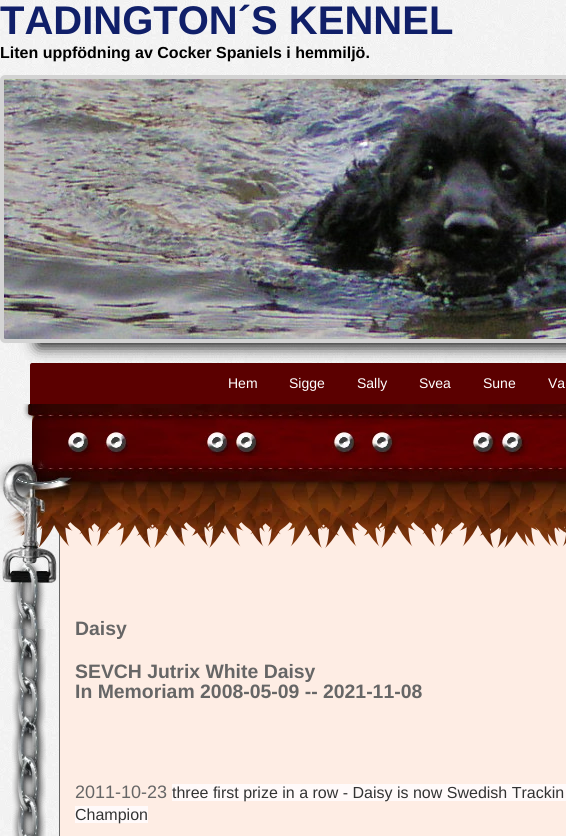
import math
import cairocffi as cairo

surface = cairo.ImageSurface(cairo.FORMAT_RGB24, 566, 836)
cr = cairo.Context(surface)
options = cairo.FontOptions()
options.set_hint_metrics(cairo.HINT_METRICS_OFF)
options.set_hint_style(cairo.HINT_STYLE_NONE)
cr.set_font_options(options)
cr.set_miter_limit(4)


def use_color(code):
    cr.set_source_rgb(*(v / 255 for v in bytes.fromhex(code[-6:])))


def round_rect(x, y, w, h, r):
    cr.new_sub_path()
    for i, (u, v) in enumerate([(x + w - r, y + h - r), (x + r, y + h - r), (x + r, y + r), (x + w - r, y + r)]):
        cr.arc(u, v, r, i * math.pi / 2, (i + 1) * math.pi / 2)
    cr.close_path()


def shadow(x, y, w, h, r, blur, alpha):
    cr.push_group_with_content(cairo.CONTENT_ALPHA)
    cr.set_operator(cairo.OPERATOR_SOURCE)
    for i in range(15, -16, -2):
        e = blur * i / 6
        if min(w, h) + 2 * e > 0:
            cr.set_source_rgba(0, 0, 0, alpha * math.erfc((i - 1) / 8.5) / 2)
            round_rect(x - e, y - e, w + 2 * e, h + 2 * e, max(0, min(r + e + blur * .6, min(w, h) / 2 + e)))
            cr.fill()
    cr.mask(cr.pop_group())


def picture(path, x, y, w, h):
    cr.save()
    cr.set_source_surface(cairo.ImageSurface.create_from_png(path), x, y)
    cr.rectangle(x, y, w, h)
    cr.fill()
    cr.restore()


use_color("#ffffff")
cr.paint()
picture("img1.png", 0, 0, 566, 836)
cr.select_font_face("Liberation Sans", cairo.FONT_SLANT_NORMAL, cairo.FONT_WEIGHT_BOLD)
cr.set_font_size(40)
use_color("#101f69")
cr.move_to(0, 34)
cr.show_text("TADINGTON´S KENNEL")
cr.set_font_size(16)
use_color("#000000")
cr.move_to(0, 58)
cr.show_text("Liten uppfödning av Cocker Spaniels i hemmiljö.")
use_color("#5b0000")
cr.new_path()
cr.move_to(32, 363)
cr.line_to(566, 363)
cr.curve_to(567, 363, 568, 364, 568, 365)
cr.line_to(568, 404)
cr.line_to(30, 404)
cr.line_to(30, 365)
cr.curve_to(30, 364, 31, 363, 32, 363)
cr.close_path()
cr.fill()
use_color("#000000")
shadow(38, 154, 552, 192, 0, 8, 1)
round_rect(2, 77, 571, 264, 3)
use_color("#d3d3d3")
cr.set_line_width(4)
cr.stroke()
picture("img2.png", 4, 79, 562, 260)
cr.select_font_face("Liberation Sans")
cr.set_font_size(14)
use_color("#ffffff")
cr.move_to(228, 388)
cr.show_text("Hem")
cr.move_to(289, 388)
cr.show_text("Sigge")
cr.move_to(357, 388)
cr.show_text("Sally")
cr.move_to(419, 388)
cr.show_text("Svea")
cr.move_to(483, 388)
cr.show_text("Sune")
cr.move_to(548, 388)
cr.show_text("Va")
use_color("#feede4")
cr.rectangle(60, 514, 506, 322)
cr.fill()
use_color("#666666")
cr.set_fill_rule(cairo.FILL_RULE_EVEN_ODD)
cr.new_path()
cr.move_to(59, 490)
cr.line_to(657, 490)
cr.line_to(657, 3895)
cr.curve_to(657, 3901, 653, 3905, 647, 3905)
cr.line_to(69, 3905)
cr.curve_to(63, 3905, 59, 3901, 59, 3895)
cr.close_path()
cr.move_to(60, 490)
cr.line_to(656, 490)
cr.line_to(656, 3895)
cr.curve_to(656, 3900, 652, 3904, 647, 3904)
cr.line_to(69, 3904)
cr.curve_to(64, 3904, 60, 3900, 60, 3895)
cr.close_path()
cr.fill()
cr.select_font_face("Liberation Sans", cairo.FONT_SLANT_NORMAL, cairo.FONT_WEIGHT_BOLD)
cr.set_font_size(19.4)
cr.move_to(75, 635)
cr.show_text("Daisy")
picture("img3.png", 0, 404, 566, 225)
picture("img4.png", 12, 629, 34, 207)
cr.move_to(75, 678)
cr.show_text("SEVCH Jutrix White Daisy")
cr.move_to(75, 698)
cr.show_text("In Memoriam 2008-05-09 -- 2021-11-08")
cr.select_font_face("Liberation Sans")
cr.set_font_size(18)
cr.move_to(75, 798)
cr.show_text("2011-10-23")
use_color("#fffafa")
cr.rectangle(172, 784, 394, 17)
cr.fill()
cr.set_font_size(16)
use_color("#333333")
cr.move_to(172, 798)
cr.show_text("three first prize in a row - Daisy is now Swedish Trackin")
use_color("#fffafa")
cr.rectangle(75, 806, 73, 17)
cr.fill()
use_color("#333333")
cr.move_to(75, 820)
cr.show_text("Champion")
surface.write_to_png("result.png")
